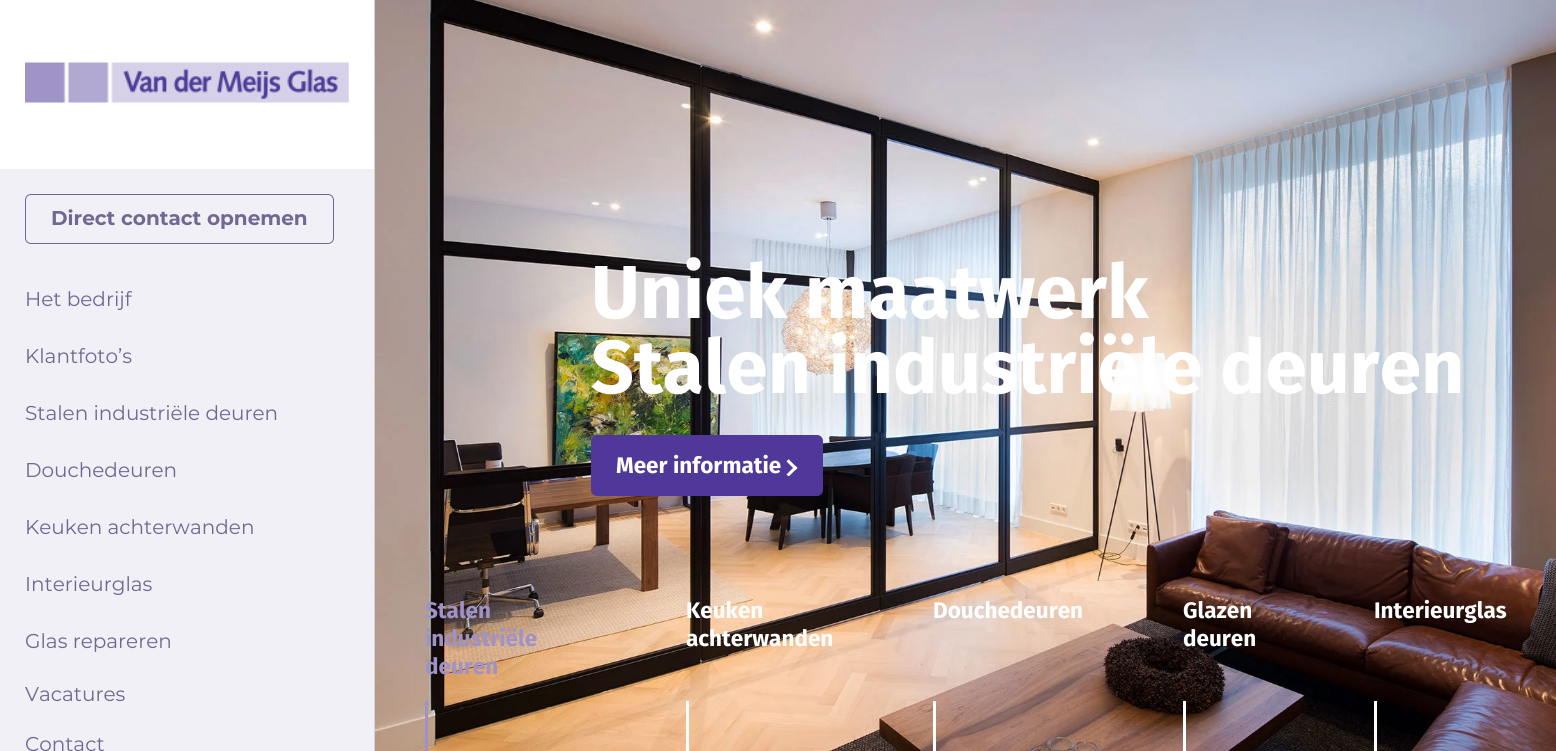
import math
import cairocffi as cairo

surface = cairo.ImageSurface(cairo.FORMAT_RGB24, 1556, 751)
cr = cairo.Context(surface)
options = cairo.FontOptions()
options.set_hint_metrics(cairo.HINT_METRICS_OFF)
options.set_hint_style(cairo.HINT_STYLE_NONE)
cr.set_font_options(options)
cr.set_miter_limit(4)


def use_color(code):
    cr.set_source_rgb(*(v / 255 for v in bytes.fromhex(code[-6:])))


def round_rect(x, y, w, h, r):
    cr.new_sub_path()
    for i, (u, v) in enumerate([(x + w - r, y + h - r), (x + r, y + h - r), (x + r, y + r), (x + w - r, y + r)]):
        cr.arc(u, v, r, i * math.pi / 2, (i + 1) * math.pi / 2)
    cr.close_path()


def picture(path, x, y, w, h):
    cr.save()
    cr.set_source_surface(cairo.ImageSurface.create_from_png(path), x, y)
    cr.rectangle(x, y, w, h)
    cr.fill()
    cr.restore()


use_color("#f2f0f7")
cr.paint()
use_color("#d4d4d4")
cr.rectangle(374, 0, 1, 751)
cr.fill()
use_color("#ffffff")
cr.rectangle(0, 0, 374, 169)
cr.fill()
picture("img1.png", 25, 62, 324, 41)
round_rect(25.5, 194.5, 308, 49, 5.5)
use_color("#706793")
cr.set_line_width(1)
cr.stroke()
cr.select_font_face("Montserrat", cairo.FONT_SLANT_NORMAL, cairo.FONT_WEIGHT_BOLD)
cr.set_font_size(20)
cr.move_to(51, 225)
cr.show_text("Direct contact opnemen")
cr.select_font_face("Montserrat")
cr.move_to(25, 306)
cr.show_text("Het bedrijf")
cr.move_to(25, 363)
cr.show_text("Klantfoto’s")
cr.move_to(25, 420)
cr.show_text("Stalen industriële deuren")
cr.move_to(25, 477)
cr.show_text("Douchedeuren")
cr.move_to(25, 534)
cr.show_text("Keuken achterwanden")
cr.move_to(25, 591)
cr.show_text("Interieurglas")
cr.move_to(25, 648)
cr.show_text("Glas repareren")
cr.move_to(25, 701)
cr.show_text("Vacatures")
cr.move_to(25, 751)
cr.show_text("Contact")
picture("img2.png", 375, 0, 1181, 751)
cr.select_font_face("Fira Sans", cairo.FONT_SLANT_NORMAL, cairo.FONT_WEIGHT_BOLD)
cr.set_font_size(75)
use_color("#ffffff")
cr.move_to(591, 318)
cr.show_text("Uniek maatwerk")
cr.move_to(591, 393)
cr.show_text("Stalen industriële deuren")
use_color("#4f389a")
round_rect(591, 435, 232, 61, 6)
cr.fill()
cr.set_font_size(22.5)
use_color("#ffffff")
cr.move_to(616, 473)
cr.show_text("Meer informatie")
picture("img3.png", 786, 459, 12, 17)
use_color("#9f92c8")
cr.move_to(425, 618)
cr.show_text("Stalen")
cr.move_to(425, 646)
cr.show_text("industriële")
cr.move_to(425, 674)
cr.show_text("deuren")
cr.rectangle(425, 701, 3, 50)
cr.fill()
use_color("#ffffff")
cr.move_to(686, 618)
cr.show_text("Keuken")
cr.move_to(686, 646)
cr.show_text("achterwanden")
cr.rectangle(686, 701, 3, 50)
cr.fill()
cr.move_to(933, 618)
cr.show_text("Douchedeuren")
cr.rectangle(933, 701, 3, 50)
cr.fill()
cr.move_to(1183, 618)
cr.show_text("Glazen")
cr.move_to(1183, 646)
cr.show_text("deuren")
cr.rectangle(1183, 701, 3, 50)
cr.fill()
cr.move_to(1374, 618)
cr.show_text("Interieurglas")
cr.rectangle(1374, 701, 3, 50)
cr.fill()
surface.write_to_png("result.png")
